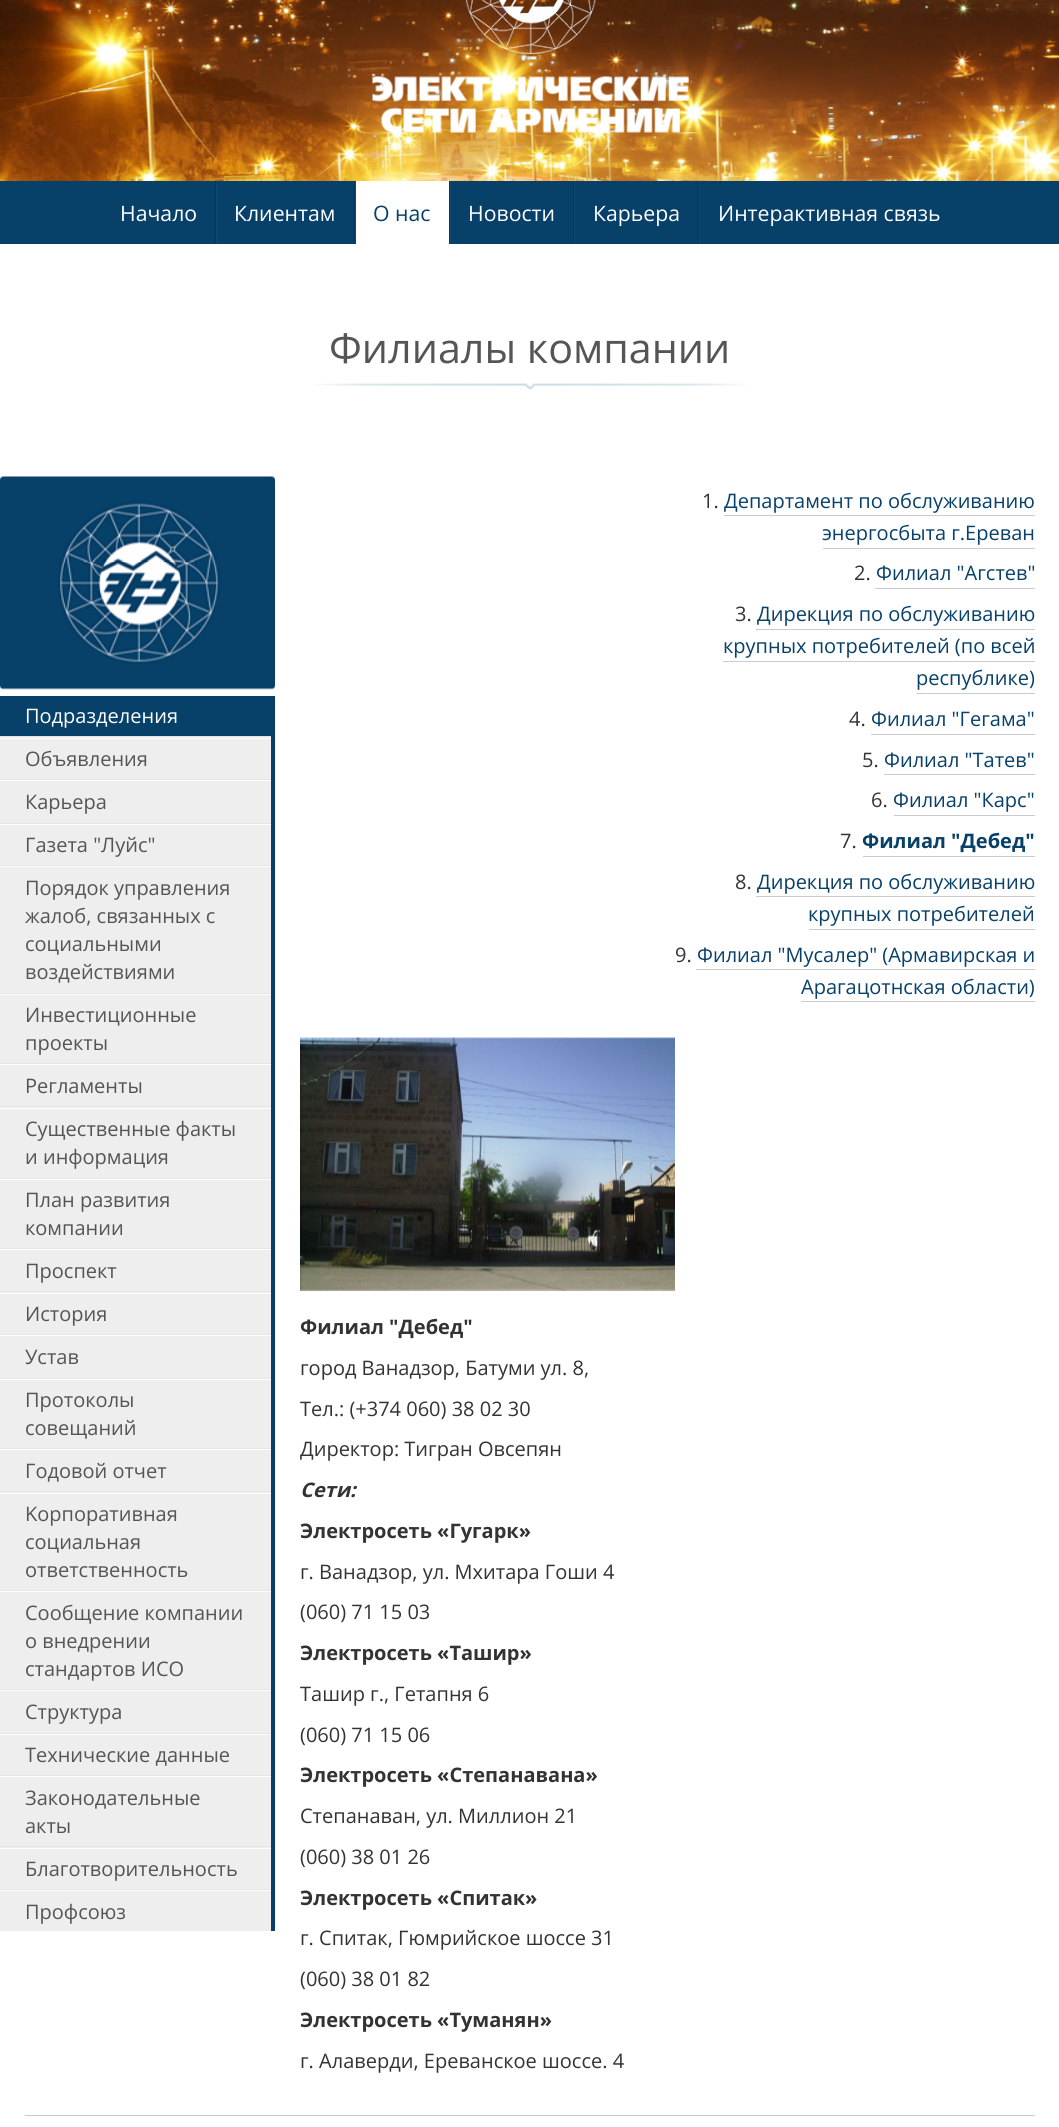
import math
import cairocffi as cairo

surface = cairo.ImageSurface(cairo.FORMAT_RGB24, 1059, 2127)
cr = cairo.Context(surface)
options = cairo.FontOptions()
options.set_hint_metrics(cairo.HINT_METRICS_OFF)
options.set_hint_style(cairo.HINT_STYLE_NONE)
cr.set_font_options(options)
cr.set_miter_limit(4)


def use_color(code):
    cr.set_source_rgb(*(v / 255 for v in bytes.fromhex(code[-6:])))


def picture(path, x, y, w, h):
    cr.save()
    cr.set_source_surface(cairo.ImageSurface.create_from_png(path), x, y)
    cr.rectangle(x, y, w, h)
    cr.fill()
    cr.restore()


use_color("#ffffff")
cr.paint()
picture("img1.png", 0, 0, 1059, 181)
picture("img2.png", 465, 0, 131, 54)
picture("img3.png", 372, 76, 317, 57)
use_color("#074069")
cr.rectangle(0, 181, 1059, 63)
cr.fill()
use_color("#00365f")
cr.rectangle(215, 181, 1, 63)
cr.fill()
cr.select_font_face("Open Sans")
cr.set_font_size(21.25)
use_color("#ffffff")
cr.move_to(120, 221)
cr.show_text("Начало")
use_color("#00365f")
cr.rectangle(354, 181, 1, 63)
cr.fill()
use_color("#114a73")
cr.rectangle(216, 181, 1, 63)
cr.fill()
use_color("#ffffff")
cr.move_to(234, 221)
cr.show_text("Клиентам")
use_color("#00365f")
cr.rectangle(449, 181, 1, 63)
cr.fill()
use_color("#114a73")
cr.rectangle(355, 181, 1, 63)
cr.fill()
use_color("#ffffff")
cr.rectangle(356, 181, 93, 63)
cr.fill()
use_color("#074069")
cr.move_to(373, 221)
cr.show_text("О нас")
use_color("#00365f")
cr.rectangle(573, 181, 1, 63)
cr.fill()
use_color("#114a73")
cr.rectangle(450, 181, 1, 63)
cr.fill()
use_color("#ffffff")
cr.move_to(468, 221)
cr.show_text("Новости")
use_color("#00365f")
cr.rectangle(698, 181, 1, 63)
cr.fill()
use_color("#114a73")
cr.rectangle(574, 181, 1, 63)
cr.fill()
use_color("#ffffff")
cr.move_to(593, 221)
cr.show_text("Карьера")
use_color("#114a73")
cr.rectangle(699, 181, 1, 63)
cr.fill()
use_color("#ffffff")
cr.move_to(718, 221)
cr.show_text("Интерактивная связь")
picture("img4.png", 313, 383, 434, 7)
cr.set_font_size(41.25)
use_color("#555555")
cr.move_to(329, 363)
cr.show_text("Филиалы компании")
picture("img5.png", 0, 476, 275, 214)
use_color("#eeeeee")
cr.rectangle(0, 737, 271, 1194)
cr.fill()
use_color("#074069")
cr.rectangle(271, 696, 4, 1235)
cr.fill()
use_color("#e5e5e5")
cr.rectangle(0, 736, 271, 1)
cr.fill()
use_color("#074069")
cr.rectangle(0, 696, 271, 40)
cr.fill()
cr.set_font_size(20)
use_color("#ffffff")
cr.move_to(25, 723)
cr.show_text("Подразделения")
use_color("#fefefe")
cr.rectangle(0, 738, 271, 1)
cr.fill()
use_color("#e5e5e5")
cr.rectangle(0, 779, 271, 1)
cr.fill()
use_color("#555555")
cr.move_to(25, 766)
cr.show_text("Объявления")
use_color("#fefefe")
cr.rectangle(0, 780, 271, 1)
cr.fill()
use_color("#e5e5e5")
cr.rectangle(0, 823, 271, 1)
cr.fill()
use_color("#555555")
cr.move_to(25, 809)
cr.show_text("Карьера")
use_color("#fefefe")
cr.rectangle(0, 824, 271, 1)
cr.fill()
use_color("#e5e5e5")
cr.rectangle(0, 865, 271, 1)
cr.fill()
use_color("#555555")
cr.move_to(25, 852)
cr.show_text("Газета \"Луйс\"")
use_color("#fefefe")
cr.rectangle(0, 866, 271, 1)
cr.fill()
use_color("#e5e5e5")
cr.rectangle(0, 993, 271, 1)
cr.fill()
use_color("#555555")
cr.move_to(25, 895)
cr.show_text("Порядок управления")
cr.move_to(25, 923)
cr.show_text("жалоб, связанных с")
cr.move_to(25, 951)
cr.show_text("социальными")
cr.move_to(25, 979)
cr.show_text("воздействиями")
use_color("#fefefe")
cr.rectangle(0, 994, 271, 1)
cr.fill()
use_color("#e5e5e5")
cr.rectangle(0, 1063, 271, 1)
cr.fill()
use_color("#555555")
cr.move_to(25, 1022)
cr.show_text("Инвестиционные")
cr.move_to(25, 1050)
cr.show_text("проекты")
use_color("#fefefe")
cr.rectangle(0, 1064, 271, 1)
cr.fill()
use_color("#e5e5e5")
cr.rectangle(0, 1106, 271, 1)
cr.fill()
use_color("#555555")
cr.move_to(25, 1093)
cr.show_text("Регламенты")
use_color("#fefefe")
cr.rectangle(0, 1108, 271, 1)
cr.fill()
use_color("#e5e5e5")
cr.rectangle(0, 1178, 271, 1)
cr.fill()
use_color("#555555")
cr.move_to(25, 1136)
cr.show_text("Существенные факты")
cr.move_to(25, 1164)
cr.show_text("и информация")
use_color("#fefefe")
cr.rectangle(0, 1179, 271, 1)
cr.fill()
use_color("#e5e5e5")
cr.rectangle(0, 1248, 271, 1)
cr.fill()
use_color("#555555")
cr.move_to(25, 1207)
cr.show_text("План развития")
cr.move_to(25, 1235)
cr.show_text("компании")
use_color("#fefefe")
cr.rectangle(0, 1249, 271, 1)
cr.fill()
use_color("#e5e5e5")
cr.rectangle(0, 1291, 271, 1)
cr.fill()
use_color("#555555")
cr.move_to(25, 1278)
cr.show_text("Проспект")
use_color("#fefefe")
cr.rectangle(0, 1293, 271, 1)
cr.fill()
use_color("#e5e5e5")
cr.rectangle(0, 1334, 271, 1)
cr.fill()
use_color("#555555")
cr.move_to(25, 1321)
cr.show_text("История")
use_color("#fefefe")
cr.rectangle(0, 1335, 271, 1)
cr.fill()
use_color("#e5e5e5")
cr.rectangle(0, 1378, 271, 1)
cr.fill()
use_color("#555555")
cr.move_to(25, 1364)
cr.show_text("Устав")
use_color("#fefefe")
cr.rectangle(0, 1379, 271, 1)
cr.fill()
use_color("#e5e5e5")
cr.rectangle(0, 1448, 271, 1)
cr.fill()
use_color("#555555")
cr.move_to(25, 1407)
cr.show_text("Протоколы")
cr.move_to(25, 1435)
cr.show_text("совещаний")
use_color("#fefefe")
cr.rectangle(0, 1449, 271, 1)
cr.fill()
use_color("#e5e5e5")
cr.rectangle(0, 1491, 271, 1)
cr.fill()
use_color("#555555")
cr.move_to(25, 1478)
cr.show_text("Годовoй отчет")
use_color("#fefefe")
cr.rectangle(0, 1493, 271, 1)
cr.fill()
use_color("#e5e5e5")
cr.rectangle(0, 1590, 271, 1)
cr.fill()
use_color("#555555")
cr.move_to(25, 1521)
cr.show_text("Kорпоративная")
cr.move_to(25, 1549)
cr.show_text("социальная")
cr.move_to(25, 1577)
cr.show_text("ответственность")
use_color("#fefefe")
cr.rectangle(0, 1591, 271, 1)
cr.fill()
use_color("#e5e5e5")
cr.rectangle(0, 1689, 271, 1)
cr.fill()
use_color("#555555")
cr.move_to(25, 1620)
cr.show_text("Сообщение компании")
cr.move_to(25, 1648)
cr.show_text("о внедрении")
cr.move_to(25, 1676)
cr.show_text("стандартов ИСО")
use_color("#fefefe")
cr.rectangle(0, 1690, 271, 1)
cr.fill()
use_color("#e5e5e5")
cr.rectangle(0, 1733, 271, 1)
cr.fill()
use_color("#555555")
cr.move_to(25, 1719)
cr.show_text("Структура")
use_color("#fefefe")
cr.rectangle(0, 1734, 271, 1)
cr.fill()
use_color("#e5e5e5")
cr.rectangle(0, 1775, 271, 1)
cr.fill()
use_color("#555555")
cr.move_to(25, 1762)
cr.show_text("Технические данные")
use_color("#fefefe")
cr.rectangle(0, 1776, 271, 1)
cr.fill()
use_color("#e5e5e5")
cr.rectangle(0, 1846, 271, 1)
cr.fill()
use_color("#555555")
cr.move_to(25, 1805)
cr.show_text("Законодательные")
cr.move_to(25, 1833)
cr.show_text("акты")
use_color("#fefefe")
cr.rectangle(0, 1848, 271, 1)
cr.fill()
use_color("#e5e5e5")
cr.rectangle(0, 1889, 271, 1)
cr.fill()
use_color("#555555")
cr.move_to(25, 1876)
cr.show_text("Благотворительность")
use_color("#fefefe")
cr.rectangle(0, 1890, 271, 1)
cr.fill()
use_color("#555555")
cr.move_to(25, 1919)
cr.show_text("Профсоюз")
use_color("#333333")
cr.move_to(702, 508)
cr.show_text("1.")
use_color("#074069")
cr.move_to(724, 508)
cr.show_text("Департамент по обслуживанию")
use_color("#cccccc")
cr.rectangle(724, 515, 311, 1)
cr.fill()
use_color("#074069")
cr.move_to(822, 540)
cr.show_text("энергосбыта г.Ереван")
use_color("#cccccc")
cr.rectangle(823, 548, 212, 1)
cr.fill()
use_color("#333333")
cr.move_to(854, 580)
cr.show_text("2.")
use_color("#074069")
cr.move_to(876, 580)
cr.show_text("Филиал \"Агстев\"")
use_color("#cccccc")
cr.rectangle(875, 588, 160, 1)
cr.fill()
use_color("#333333")
cr.move_to(735, 621)
cr.show_text("3.")
use_color("#074069")
cr.move_to(757, 621)
cr.show_text("Дирекция по обслуживанию")
use_color("#cccccc")
cr.rectangle(756, 629, 279, 1)
cr.fill()
use_color("#074069")
cr.move_to(723, 653)
cr.show_text("крупных потребителей (по всей")
use_color("#cccccc")
cr.rectangle(723, 661, 312, 1)
cr.fill()
use_color("#074069")
cr.move_to(916, 685)
cr.show_text("республике)")
use_color("#cccccc")
cr.rectangle(916, 693, 119, 1)
cr.fill()
use_color("#333333")
cr.move_to(849, 726)
cr.show_text("4.")
use_color("#074069")
cr.move_to(871, 726)
cr.show_text("Филиал \"Гегама\"")
use_color("#cccccc")
cr.rectangle(871, 734, 164, 1)
cr.fill()
use_color("#333333")
cr.move_to(862, 767)
cr.show_text("5.")
use_color("#074069")
cr.move_to(884, 767)
cr.show_text("Филиал \"Татев\"")
use_color("#cccccc")
cr.rectangle(884, 774, 151, 1)
cr.fill()
use_color("#333333")
cr.move_to(871, 807)
cr.show_text("6.")
use_color("#074069")
cr.move_to(893, 807)
cr.show_text("Филиал \"Карс\"")
use_color("#cccccc")
cr.rectangle(894, 815, 141, 1)
cr.fill()
use_color("#333333")
cr.move_to(840, 848)
cr.show_text("7.")
cr.select_font_face("Open Sans", cairo.FONT_SLANT_NORMAL, cairo.FONT_WEIGHT_BOLD)
use_color("#074069")
cr.move_to(862, 848)
cr.show_text("Филиал \"Дебед\"")
use_color("#cccccc")
cr.rectangle(863, 856, 172, 1)
cr.fill()
cr.select_font_face("Open Sans")
use_color("#333333")
cr.move_to(735, 889)
cr.show_text("8.")
use_color("#074069")
cr.move_to(757, 889)
cr.show_text("Дирекция по обслуживанию")
use_color("#cccccc")
cr.rectangle(756, 896, 279, 1)
cr.fill()
use_color("#074069")
cr.move_to(808, 921)
cr.show_text("крупных потребителей")
use_color("#cccccc")
cr.rectangle(809, 929, 226, 1)
cr.fill()
use_color("#333333")
cr.move_to(675, 962)
cr.show_text("9.")
use_color("#074069")
cr.move_to(697, 962)
cr.show_text("Филиал \"Мусалер\" (Армавирская и")
use_color("#cccccc")
cr.rectangle(696, 969, 339, 1)
cr.fill()
use_color("#074069")
cr.move_to(801, 994)
cr.show_text("Арагацотнская области)")
use_color("#cccccc")
cr.rectangle(801, 1001, 234, 1)
cr.fill()
picture("img6.png", 300, 1037, 375, 254)
cr.select_font_face("Open Sans", cairo.FONT_SLANT_NORMAL, cairo.FONT_WEIGHT_BOLD)
use_color("#333333")
cr.move_to(300, 1334)
cr.show_text("Филиал \"Дебед\"")
cr.select_font_face("Open Sans")
cr.move_to(300, 1375)
cr.show_text("город Ванадзор, Батуми ул. 8,")
cr.move_to(300, 1416)
cr.show_text("Тел.: (+374 060) 38 02 30")
cr.move_to(300, 1456)
cr.show_text("Директор: Тигран Овсепян")
cr.select_font_face("Open Sans", cairo.FONT_SLANT_ITALIC, cairo.FONT_WEIGHT_BOLD)
cr.move_to(300, 1497)
cr.show_text("Сети:")
cr.select_font_face("Open Sans", cairo.FONT_SLANT_NORMAL, cairo.FONT_WEIGHT_BOLD)
cr.move_to(300, 1538)
cr.show_text("Электросеть «Гугарк»")
cr.select_font_face("Open Sans")
cr.move_to(300, 1579)
cr.show_text("г. Ванадзор, ул. Мхитара Гоши 4")
cr.move_to(300, 1619)
cr.show_text("(060) 71 15 03")
cr.select_font_face("Open Sans", cairo.FONT_SLANT_NORMAL, cairo.FONT_WEIGHT_BOLD)
cr.move_to(300, 1660)
cr.show_text("Электросеть «Ташир»")
cr.select_font_face("Open Sans")
cr.move_to(300, 1701)
cr.show_text("Ташир г., Гетапня 6")
cr.move_to(300, 1742)
cr.show_text("(060) 71 15 06")
cr.select_font_face("Open Sans", cairo.FONT_SLANT_NORMAL, cairo.FONT_WEIGHT_BOLD)
cr.move_to(300, 1782)
cr.show_text("Электросеть «Степанавана»")
cr.select_font_face("Open Sans")
cr.move_to(300, 1823)
cr.show_text("Степанаван, ул. Миллион 21")
cr.move_to(300, 1864)
cr.show_text("(060) 38 01 26")
cr.select_font_face("Open Sans", cairo.FONT_SLANT_NORMAL, cairo.FONT_WEIGHT_BOLD)
cr.move_to(300, 1905)
cr.show_text("Электросеть «Спитак»")
cr.select_font_face("Open Sans")
cr.move_to(300, 1945)
cr.show_text("г. Спитак, Гюмрийское шоссе 31")
cr.move_to(300, 1986)
cr.show_text("(060) 38 01 82")
cr.select_font_face("Open Sans", cairo.FONT_SLANT_NORMAL, cairo.FONT_WEIGHT_BOLD)
cr.move_to(300, 2027)
cr.show_text("Электросеть «Туманян»")
cr.select_font_face("Open Sans")
cr.move_to(300, 2068)
cr.show_text("г. Алаверди, Ереванское шоссе. 4")
use_color("#cccccc")
cr.rectangle(25, 2115, 1010, 1)
cr.fill()
surface.write_to_png("result.png")
